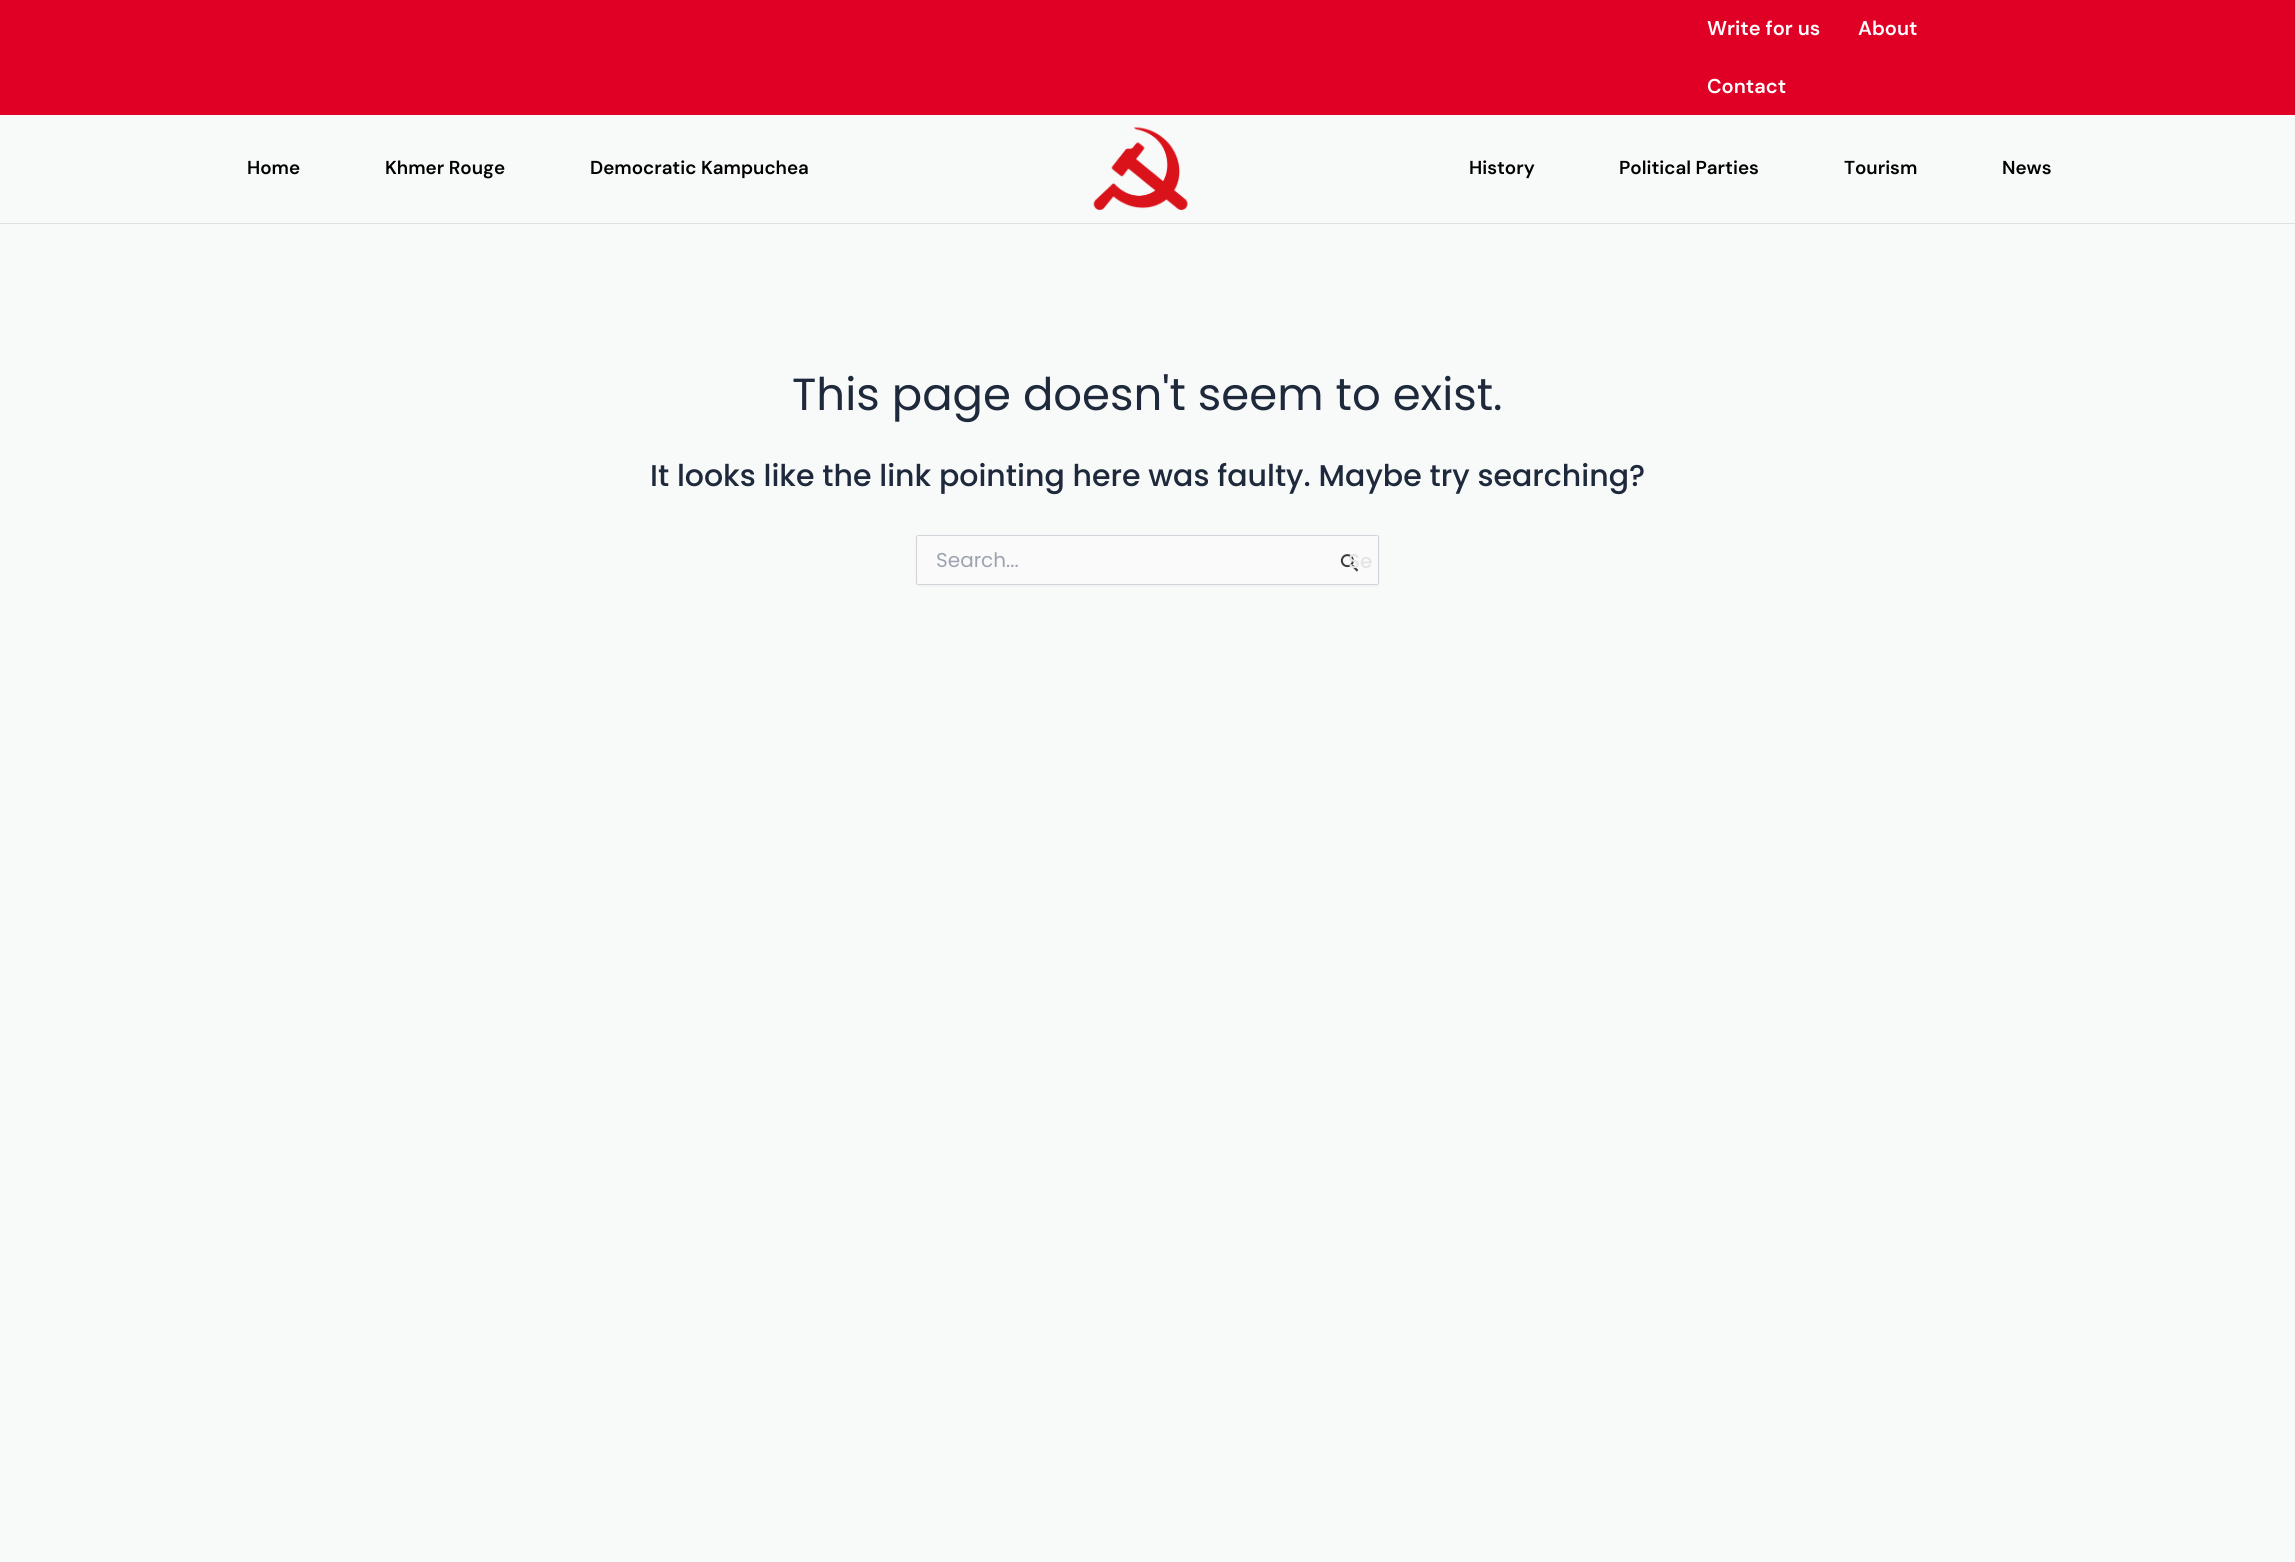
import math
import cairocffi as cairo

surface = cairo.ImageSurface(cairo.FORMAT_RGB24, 2295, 1562)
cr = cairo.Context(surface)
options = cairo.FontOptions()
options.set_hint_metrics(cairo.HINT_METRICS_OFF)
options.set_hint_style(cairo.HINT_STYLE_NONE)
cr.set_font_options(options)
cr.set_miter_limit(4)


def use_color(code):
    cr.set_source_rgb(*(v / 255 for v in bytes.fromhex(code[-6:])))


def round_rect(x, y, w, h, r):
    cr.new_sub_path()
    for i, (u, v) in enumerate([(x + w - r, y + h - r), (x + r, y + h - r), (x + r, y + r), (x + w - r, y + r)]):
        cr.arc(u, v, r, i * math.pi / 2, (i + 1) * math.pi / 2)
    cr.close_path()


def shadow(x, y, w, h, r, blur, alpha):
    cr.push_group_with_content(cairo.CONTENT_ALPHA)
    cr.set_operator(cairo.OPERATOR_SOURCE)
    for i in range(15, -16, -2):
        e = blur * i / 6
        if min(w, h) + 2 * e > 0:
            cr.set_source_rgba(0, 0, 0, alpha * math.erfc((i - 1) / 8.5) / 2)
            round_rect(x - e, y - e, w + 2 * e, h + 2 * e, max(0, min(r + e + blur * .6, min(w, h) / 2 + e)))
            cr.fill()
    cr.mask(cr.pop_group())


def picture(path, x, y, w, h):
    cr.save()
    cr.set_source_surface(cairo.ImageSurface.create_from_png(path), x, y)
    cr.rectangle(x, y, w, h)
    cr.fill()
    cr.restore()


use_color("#f8f9f9")
cr.paint()
use_color("#e00025")
cr.rectangle(0, 0, 2295, 115)
cr.fill()
cr.select_font_face("DM Sans SemiBold")
cr.set_font_size(20)
use_color("#ffffff")
cr.move_to(1707, 35)
cr.show_text("Write for us")
cr.move_to(1858, 35)
cr.show_text("About")
cr.move_to(1707, 93)
cr.show_text("Contact")
use_color("#dfdfdf")
cr.rectangle(0, 223, 2295, 1)
cr.fill()
cr.set_font_size(18.75)
use_color("#000000")
cr.move_to(247, 174)
cr.show_text("Home")
cr.move_to(385, 174)
cr.show_text("Khmer Rouge")
cr.move_to(590, 174)
cr.show_text("Democratic Kampuchea")
picture("img1.png", 1093, 127, 95, 83)
cr.move_to(1469, 174)
cr.show_text("History")
cr.move_to(1619, 174)
cr.show_text("Political Parties")
cr.move_to(1844, 174)
cr.show_text("Tourism")
cr.move_to(2002, 174)
cr.show_text("News")
cr.select_font_face("Poppins")
cr.set_font_size(45)
use_color("#1e293b")
cr.move_to(792, 410)
cr.show_text("This page doesn't seem to exist.")
cr.select_font_face("Poppins Medium")
cr.set_font_size(30)
cr.move_to(650, 486)
cr.show_text("It looks like the link pointing here was faulty. Maybe try searching?")
use_color("#000000")
shadow(916, 536, 463, 50, 2.5, 1, 0.05)
use_color("#fafafa")
round_rect(916.5, 535.5, 462, 49, 2)
cr.fill_preserve()
use_color("#d1d5db")
cr.set_line_width(1)
cr.stroke()
cr.select_font_face("Poppins")
cr.set_font_size(20)
use_color("#9ca3af")
cr.move_to(936, 567)
cr.show_text("Search...")
picture("img2.png", 1340, 554, 18, 18)
cr.select_font_face("Poppins Medium")
use_color("#e4e4e4")
cr.move_to(1348, 568)
cr.show_text("Se")
surface.write_to_png("result.png")
